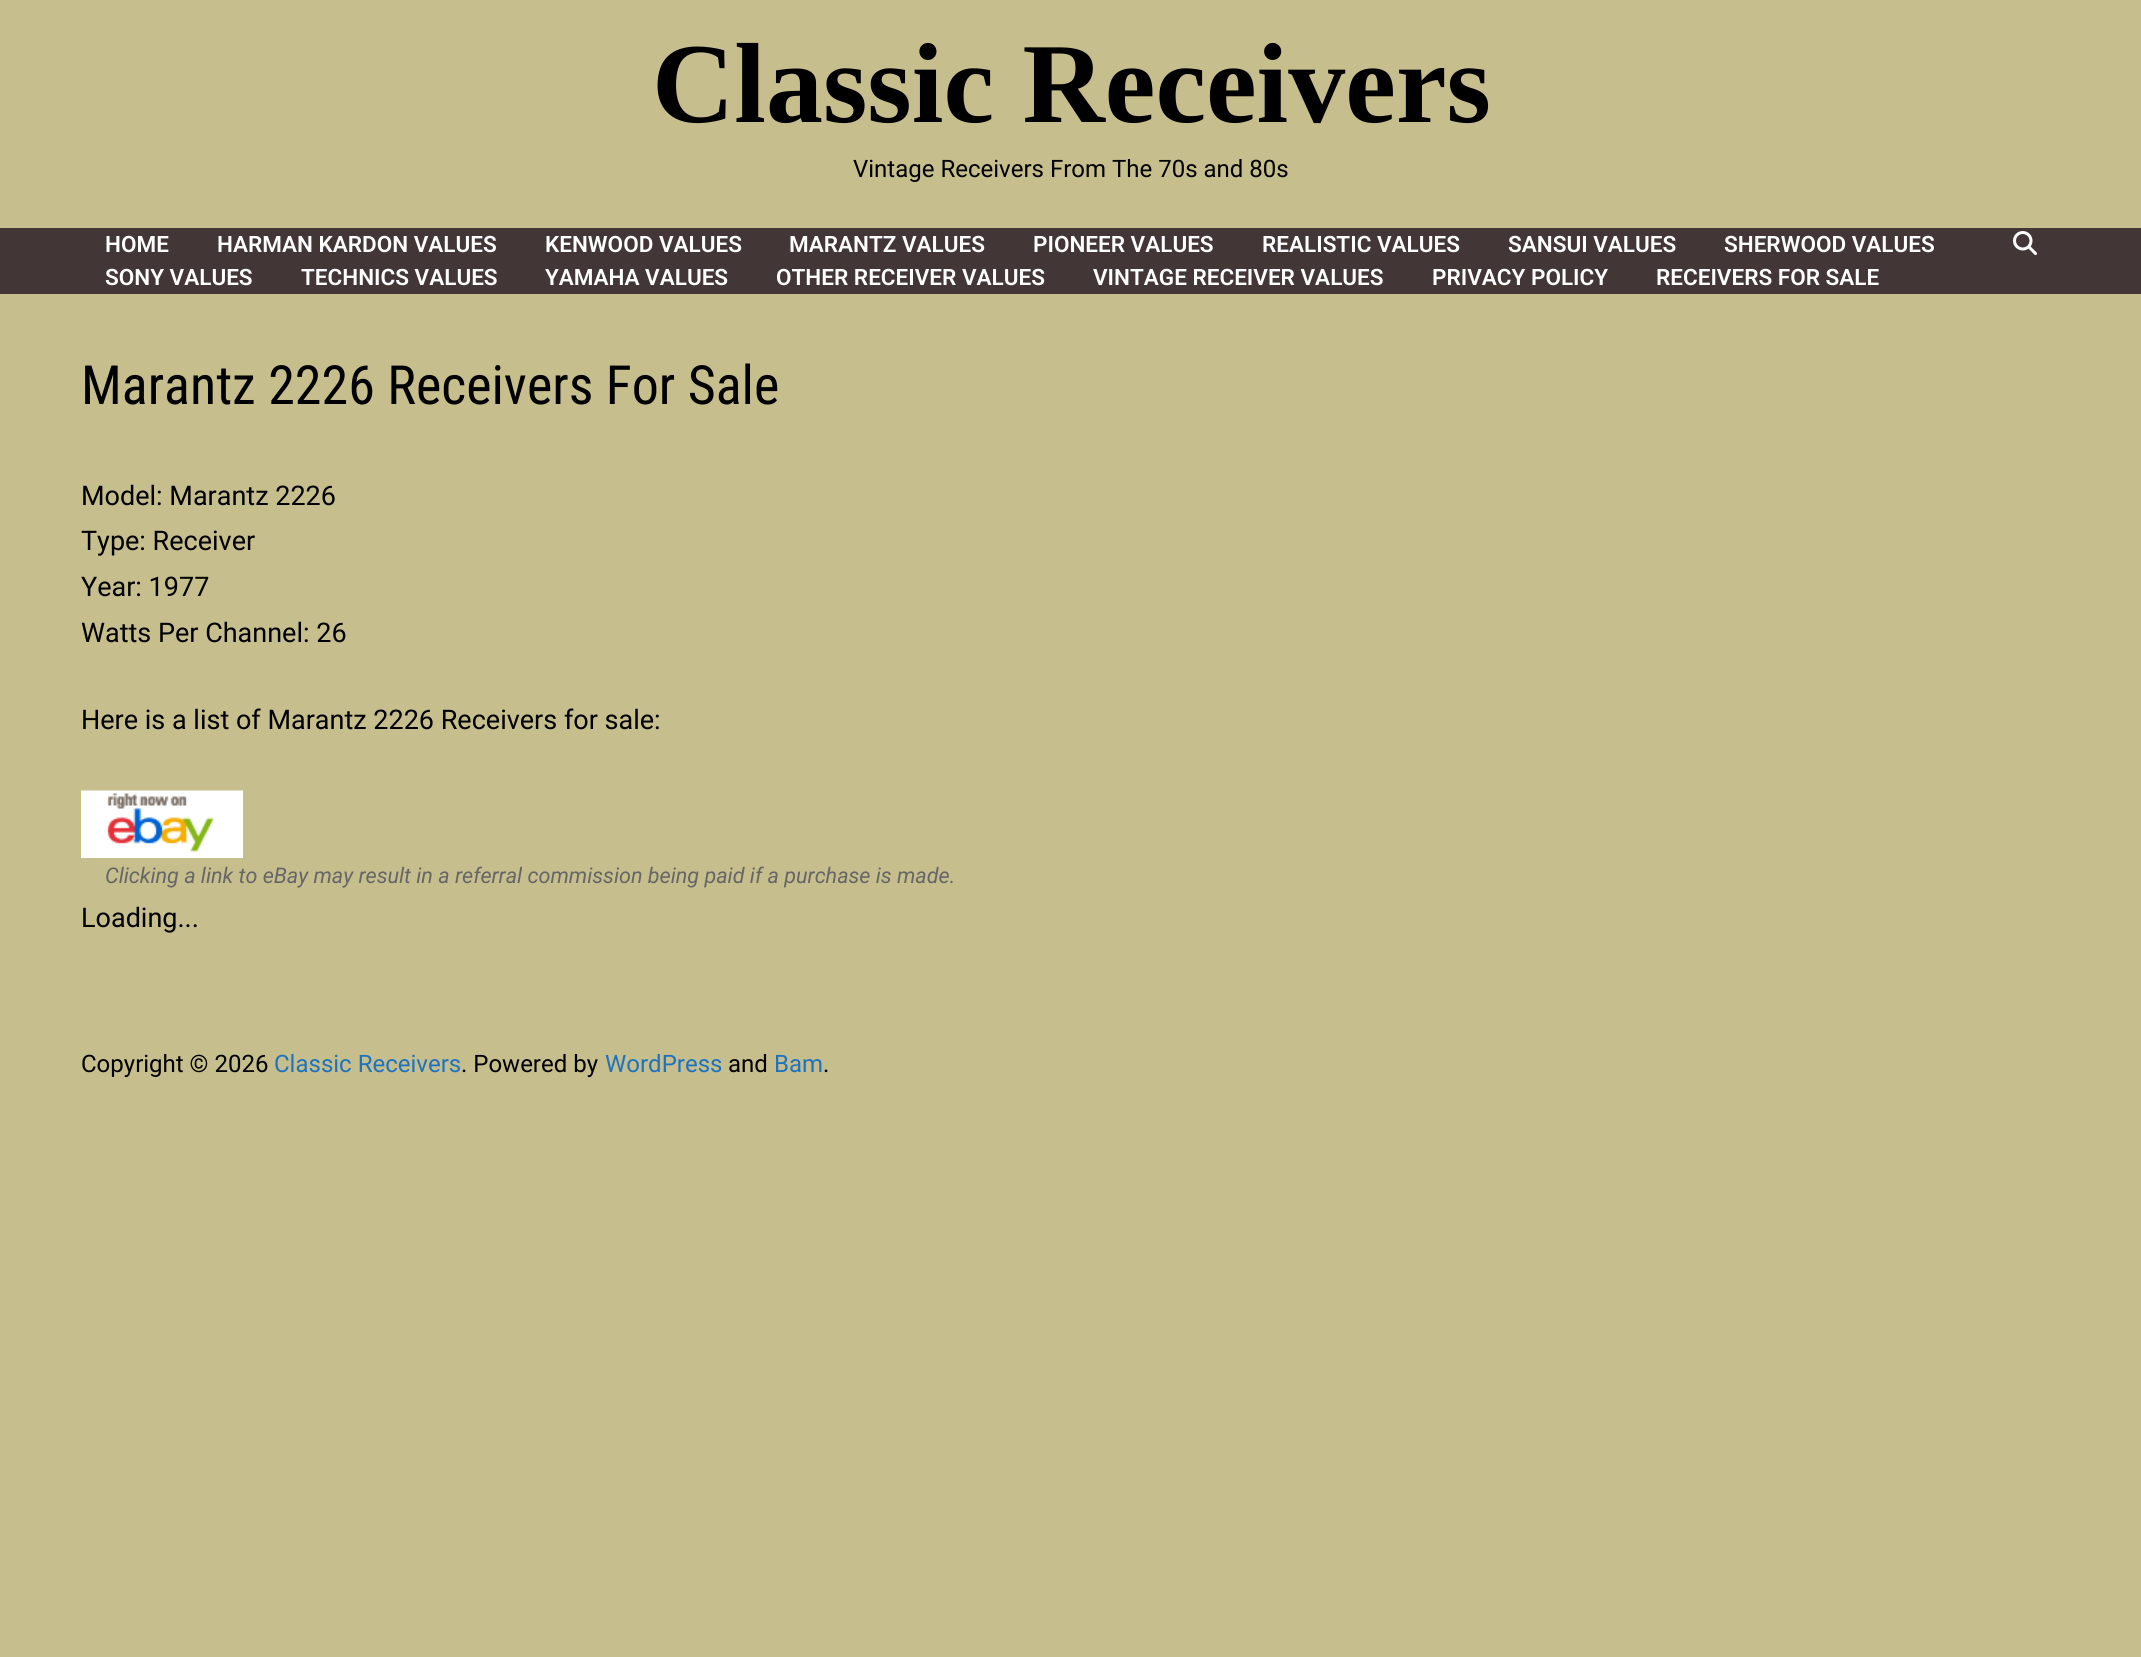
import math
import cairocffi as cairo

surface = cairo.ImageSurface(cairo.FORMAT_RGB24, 2141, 1657)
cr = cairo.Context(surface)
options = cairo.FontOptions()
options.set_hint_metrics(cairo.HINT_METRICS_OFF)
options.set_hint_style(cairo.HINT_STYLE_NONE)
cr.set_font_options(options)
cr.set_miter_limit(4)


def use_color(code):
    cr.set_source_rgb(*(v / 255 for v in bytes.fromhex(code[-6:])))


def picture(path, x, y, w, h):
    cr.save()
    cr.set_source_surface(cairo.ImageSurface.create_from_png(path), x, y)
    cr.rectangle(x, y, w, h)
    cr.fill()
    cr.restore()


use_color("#c7be8d")
cr.paint()
cr.select_font_face("Liberation Serif", cairo.FONT_SLANT_NORMAL, cairo.FONT_WEIGHT_BOLD)
cr.set_font_size(114)
use_color("#000000")
cr.move_to(652, 122)
cr.show_text("Classic Receivers")
cr.select_font_face("Roboto")
cr.set_font_size(24)
cr.move_to(853, 177)
cr.show_text("Vintage Receivers From The 70s and 80s")
use_color("#423736")
cr.rectangle(0, 228, 2141, 66)
cr.fill()
cr.select_font_face("Roboto SemiBold")
cr.set_font_size(22.5)
use_color("#ffffff")
cr.move_to(105, 252)
cr.show_text("HOME")
cr.move_to(217, 252)
cr.show_text("HARMAN KARDON VALUES")
cr.move_to(545, 252)
cr.show_text("KENWOOD VALUES")
cr.move_to(789, 252)
cr.show_text("MARANTZ VALUES")
cr.move_to(1033, 252)
cr.show_text("PIONEER VALUES")
cr.move_to(1262, 252)
cr.show_text("REALISTIC VALUES")
cr.move_to(1508, 252)
cr.show_text("SANSUI VALUES")
cr.move_to(1724, 252)
cr.show_text("SHERWOOD VALUES")
cr.move_to(105, 285)
cr.show_text("SONY VALUES")
cr.move_to(301, 285)
cr.show_text("TECHNICS VALUES")
cr.move_to(545, 285)
cr.show_text("YAMAHA VALUES")
cr.move_to(776, 285)
cr.show_text("OTHER RECEIVER VALUES")
cr.move_to(1093, 285)
cr.show_text("VINTAGE RECEIVER VALUES")
cr.move_to(1432, 285)
cr.show_text("PRIVACY POLICY")
cr.move_to(1656, 285)
cr.show_text("RECEIVERS FOR SALE")
picture("img1.png", 2013, 231, 24, 24)
cr.select_font_face("Roboto Condensed")
cr.set_font_size(54)
use_color("#000000")
cr.move_to(81, 404)
cr.show_text("Marantz 2226 Receivers For Sale")
cr.select_font_face("Roboto")
cr.set_font_size(27)
cr.move_to(81, 505)
cr.show_text("Model: Marantz 2226")
cr.move_to(81, 550)
cr.show_text("Type: Receiver")
cr.move_to(81, 596)
cr.show_text("Year: 1977")
cr.move_to(81, 642)
cr.show_text("Watts Per Channel: 26")
cr.move_to(81, 729)
cr.show_text("Here is a list of Marantz 2226 Receivers for sale:")
picture("img2.png", 81, 790, 162, 68)
cr.select_font_face("Roboto", cairo.FONT_SLANT_ITALIC)
cr.set_font_size(21.6)
use_color("#666666")
cr.move_to(105, 883)
cr.show_text("Clicking a link to eBay may result in a referral commission being paid if a purchase is made.")
cr.select_font_face("Roboto")
cr.set_font_size(27)
use_color("#000000")
cr.move_to(81, 927)
cr.show_text("Loading...")
cr.set_font_size(24)
cr.move_to(81, 1072)
cr.show_text("Copyright © 2026")
use_color("#1e73be")
cr.move_to(274, 1072)
cr.show_text("Classic Receivers")
use_color("#000000")
cr.move_to(461, 1072)
cr.show_text(". Powered by")
use_color("#1e73be")
cr.move_to(605, 1072)
cr.show_text("WordPress")
use_color("#000000")
cr.move_to(728, 1072)
cr.show_text("and")
use_color("#1e73be")
cr.move_to(774, 1072)
cr.show_text("Bam")
use_color("#000000")
cr.move_to(823, 1072)
cr.show_text(".")
surface.write_to_png("result.png")
